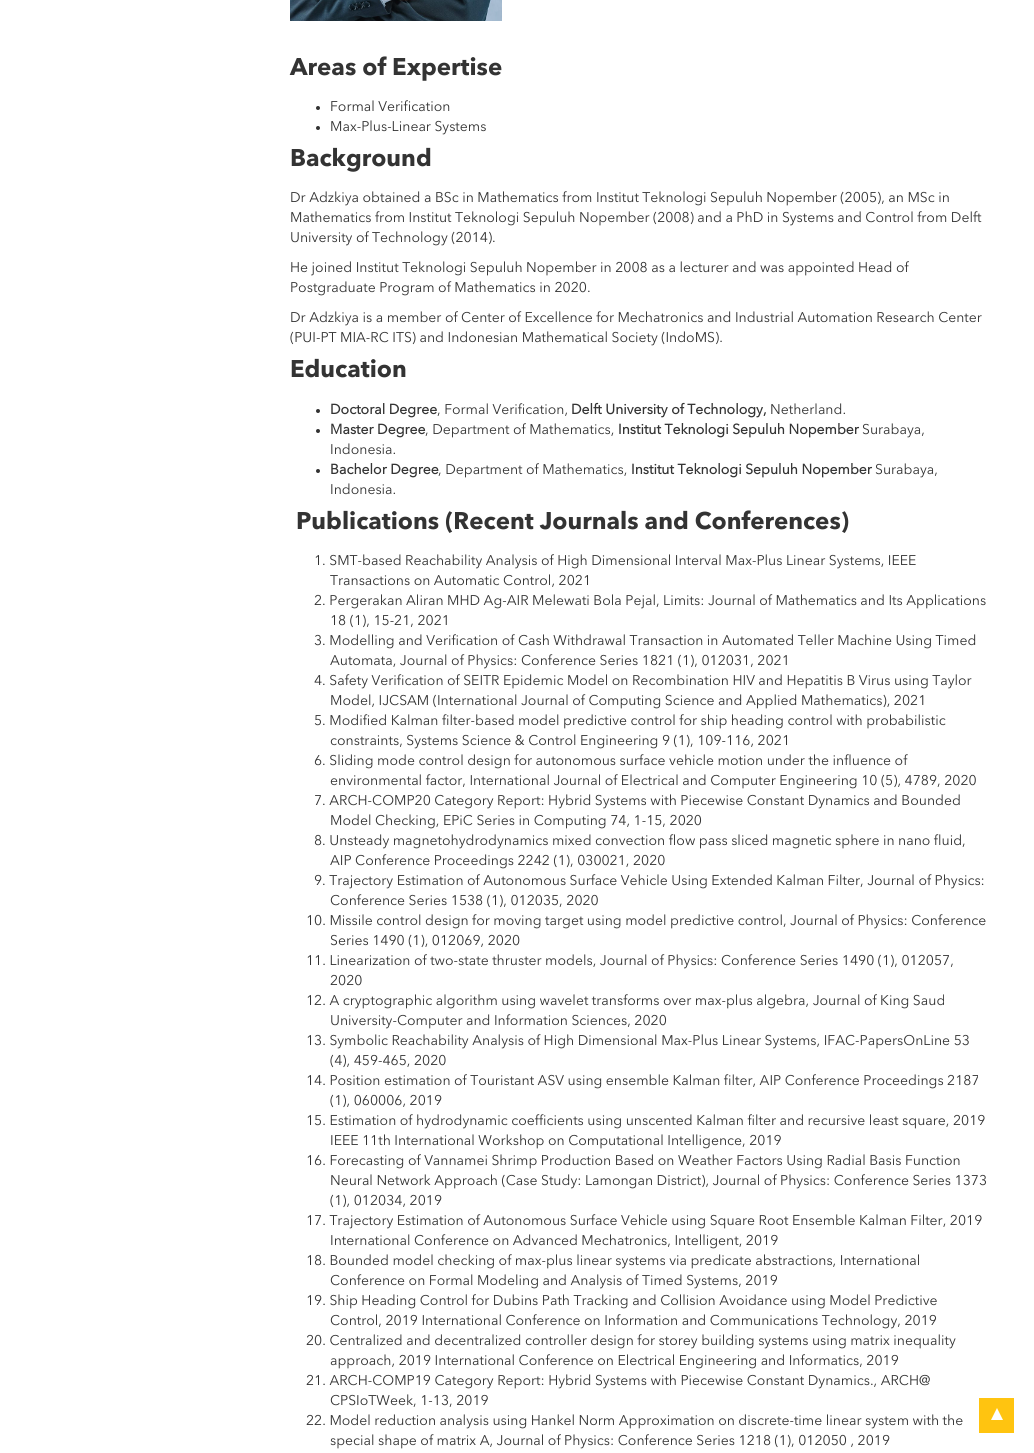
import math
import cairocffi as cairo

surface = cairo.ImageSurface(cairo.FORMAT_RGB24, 1034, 1453)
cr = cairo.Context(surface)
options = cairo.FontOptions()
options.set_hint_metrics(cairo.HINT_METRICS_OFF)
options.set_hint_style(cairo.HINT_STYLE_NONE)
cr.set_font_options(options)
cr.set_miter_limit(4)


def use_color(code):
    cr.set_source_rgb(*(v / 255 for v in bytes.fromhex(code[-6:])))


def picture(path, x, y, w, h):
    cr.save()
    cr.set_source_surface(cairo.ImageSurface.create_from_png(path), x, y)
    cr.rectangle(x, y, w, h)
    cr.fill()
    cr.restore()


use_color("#ffffff")
cr.paint()
picture("img1.png", 290, 0, 212, 21)
cr.select_font_face("Avenir Next", cairo.FONT_SLANT_NORMAL, cairo.FONT_WEIGHT_BOLD)
cr.set_font_size(24)
use_color("#333333")
cr.move_to(290, 75)
cr.show_text("Areas of Expertise")
cr.new_path()
cr.arc(318, 108, 2, 0, 2 * math.pi)
cr.fill()
cr.select_font_face("Avenir Next")
cr.set_font_size(14)
cr.move_to(330, 111)
cr.show_text("Formal Verification")
cr.new_path()
cr.arc(318, 128, 2, 0, 2 * math.pi)
cr.fill()
cr.move_to(330, 131)
cr.show_text("Max-Plus-Linear Systems")
cr.select_font_face("Avenir Next", cairo.FONT_SLANT_NORMAL, cairo.FONT_WEIGHT_BOLD)
cr.set_font_size(24)
cr.move_to(290, 166)
cr.show_text("Background")
cr.select_font_face("Avenir Next")
cr.set_font_size(14)
cr.move_to(290, 202)
cr.show_text("Dr Adzkiya obtained a BSc in Mathematics from Institut Teknologi Sepuluh Nopember (2005), an MSc in")
cr.move_to(290, 222)
cr.show_text("Mathematics from Institut Teknologi Sepuluh Nopember (2008) and a PhD in Systems and Control from Delft")
cr.move_to(290, 242)
cr.show_text("University of Technology (2014).")
cr.move_to(290, 272)
cr.show_text("He joined Institut Teknologi Sepuluh Nopember in 2008 as a lecturer and was appointed Head of")
cr.move_to(290, 292)
cr.show_text("Postgraduate Program of Mathematics in 2020.")
cr.move_to(290, 322)
cr.show_text("Dr Adzkiya is a member of Center of Excellence for Mechatronics and Industrial Automation Research Center")
cr.move_to(290, 342)
cr.show_text("(PUI-PT MIA-RC ITS) and Indonesian Mathematical Society (IndoMS).")
cr.select_font_face("Avenir Next", cairo.FONT_SLANT_NORMAL, cairo.FONT_WEIGHT_BOLD)
cr.set_font_size(24)
cr.move_to(290, 377)
cr.show_text("Education")
cr.new_path()
cr.arc(318, 411, 2, 0, 2 * math.pi)
cr.fill()
cr.select_font_face("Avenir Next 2", cairo.FONT_SLANT_NORMAL, cairo.FONT_WEIGHT_BOLD)
cr.set_font_size(14)
cr.move_to(330, 414)
cr.show_text("Doctoral Degree")
cr.select_font_face("Avenir Next")
cr.move_to(437, 414)
cr.show_text(", Formal Verification,")
cr.select_font_face("Avenir Next 2", cairo.FONT_SLANT_NORMAL, cairo.FONT_WEIGHT_BOLD)
cr.move_to(571, 414)
cr.show_text("Delft University of Technology,")
cr.select_font_face("Avenir Next")
cr.move_to(770, 414)
cr.show_text("Netherland.")
cr.new_path()
cr.arc(318, 431, 2, 0, 2 * math.pi)
cr.fill()
cr.select_font_face("Avenir Next 2", cairo.FONT_SLANT_NORMAL, cairo.FONT_WEIGHT_BOLD)
cr.move_to(330, 434)
cr.show_text("Master Degree")
cr.select_font_face("Avenir Next")
cr.move_to(425, 434)
cr.show_text(", Department of Mathematics,")
cr.select_font_face("Avenir Next 2", cairo.FONT_SLANT_NORMAL, cairo.FONT_WEIGHT_BOLD)
cr.move_to(618, 434)
cr.show_text("Institut Teknologi Sepuluh Nopember")
cr.select_font_face("Avenir Next")
cr.move_to(862, 434)
cr.show_text("Surabaya,")
cr.move_to(330, 454)
cr.show_text("Indonesia.")
cr.new_path()
cr.arc(318, 471, 2, 0, 2 * math.pi)
cr.fill()
cr.select_font_face("Avenir Next 2", cairo.FONT_SLANT_NORMAL, cairo.FONT_WEIGHT_BOLD)
cr.move_to(330, 474)
cr.show_text("Bachelor Degree")
cr.select_font_face("Avenir Next")
cr.move_to(438, 474)
cr.show_text(", Department of Mathematics,")
cr.select_font_face("Avenir Next 2", cairo.FONT_SLANT_NORMAL, cairo.FONT_WEIGHT_BOLD)
cr.move_to(631, 474)
cr.show_text("Institut Teknologi Sepuluh Nopember")
cr.select_font_face("Avenir Next")
cr.move_to(875, 474)
cr.show_text("Surabaya,")
cr.move_to(330, 494)
cr.show_text("Indonesia.")
cr.select_font_face("Avenir Next", cairo.FONT_SLANT_NORMAL, cairo.FONT_WEIGHT_BOLD)
cr.set_font_size(24)
cr.move_to(296, 529)
cr.show_text("Publications (Recent Journals and Conferences)")
cr.select_font_face("Avenir Next")
cr.set_font_size(14)
cr.move_to(314, 565)
cr.show_text("1. SMT-based Reachability Analysis of High Dimensional Interval Max-Plus Linear Systems, IEEE")
cr.move_to(330, 585)
cr.show_text("Transactions on Automatic Control, 2021")
cr.move_to(314, 605)
cr.show_text("2. Pergerakan Aliran MHD Ag-AIR Melewati Bola Pejal, Limits: Journal of Mathematics and Its Applications")
cr.move_to(330, 625)
cr.show_text("18 (1), 15-21, 2021")
cr.move_to(314, 645)
cr.show_text("3. Modelling and Verification of Cash Withdrawal Transaction in Automated Teller Machine Using Timed")
cr.move_to(330, 665)
cr.show_text("Automata, Journal of Physics: Conference Series 1821 (1), 012031, 2021")
cr.move_to(314, 685)
cr.show_text("4. Safety Verification of SEITR Epidemic Model on Recombination HIV and Hepatitis B Virus using Taylor")
cr.move_to(330, 705)
cr.show_text("Model, IJCSAM (International Journal of Computing Science and Applied Mathematics), 2021")
cr.move_to(314, 725)
cr.show_text("5. Modified Kalman filter-based model predictive control for ship heading control with probabilistic")
cr.move_to(330, 745)
cr.show_text("constraints, Systems Science & Control Engineering 9 (1), 109-116, 2021")
cr.move_to(314, 765)
cr.show_text("6. Sliding mode control design for autonomous surface vehicle motion under the influence of")
cr.move_to(330, 785)
cr.show_text("environmental factor, International Journal of Electrical and Computer Engineering 10 (5), 4789, 2020")
cr.move_to(314, 805)
cr.show_text("7. ARCH-COMP20 Category Report: Hybrid Systems with Piecewise Constant Dynamics and Bounded")
cr.move_to(330, 825)
cr.show_text("Model Checking, EPiC Series in Computing 74, 1-15, 2020")
cr.move_to(314, 845)
cr.show_text("8. Unsteady magnetohydrodynamics mixed convection flow pass sliced magnetic sphere in nano fluid,")
cr.move_to(330, 865)
cr.show_text("AIP Conference Proceedings 2242 (1), 030021, 2020")
cr.move_to(314, 885)
cr.show_text("9. Trajectory Estimation of Autonomous Surface Vehicle Using Extended Kalman Filter, Journal of Physics:")
cr.move_to(330, 905)
cr.show_text("Conference Series 1538 (1), 012035, 2020")
cr.move_to(306, 925)
cr.show_text("10. Missile control design for moving target using model predictive control, Journal of Physics: Conference")
cr.move_to(330, 945)
cr.show_text("Series 1490 (1), 012069, 2020")
cr.move_to(306, 965)
cr.show_text("11. Linearization of two-state thruster models, Journal of Physics: Conference Series 1490 (1), 012057,")
cr.move_to(330, 985)
cr.show_text("2020")
cr.move_to(306, 1005)
cr.show_text("12. A cryptographic algorithm using wavelet transforms over max-plus algebra, Journal of King Saud")
cr.move_to(330, 1025)
cr.show_text("University-Computer and Information Sciences, 2020")
cr.move_to(306, 1045)
cr.show_text("13. Symbolic Reachability Analysis of High Dimensional Max-Plus Linear Systems, IFAC-PapersOnLine 53")
cr.move_to(330, 1065)
cr.show_text("(4), 459-465, 2020")
cr.move_to(306, 1085)
cr.show_text("14. Position estimation of Touristant ASV using ensemble Kalman filter, AIP Conference Proceedings 2187")
cr.move_to(330, 1105)
cr.show_text("(1), 060006, 2019")
cr.move_to(306, 1125)
cr.show_text("15. Estimation of hydrodynamic coefficients using unscented Kalman filter and recursive least square, 2019")
cr.move_to(330, 1145)
cr.show_text("IEEE 11th International Workshop on Computational Intelligence, 2019")
cr.move_to(306, 1165)
cr.show_text("16. Forecasting of Vannamei Shrimp Production Based on Weather Factors Using Radial Basis Function")
cr.move_to(330, 1185)
cr.show_text("Neural Network Approach (Case Study: Lamongan District), Journal of Physics: Conference Series 1373")
cr.move_to(330, 1205)
cr.show_text("(1), 012034, 2019")
cr.move_to(306, 1225)
cr.show_text("17. Trajectory Estimation of Autonomous Surface Vehicle using Square Root Ensemble Kalman Filter, 2019")
cr.move_to(330, 1245)
cr.show_text("International Conference on Advanced Mechatronics, Intelligent, 2019")
cr.move_to(306, 1265)
cr.show_text("18. Bounded model checking of max-plus linear systems via predicate abstractions, International")
cr.move_to(330, 1285)
cr.show_text("Conference on Formal Modeling and Analysis of Timed Systems, 2019")
cr.move_to(306, 1305)
cr.show_text("19. Ship Heading Control for Dubins Path Tracking and Collision Avoidance using Model Predictive")
cr.move_to(330, 1325)
cr.show_text("Control, 2019 International Conference on Information and Communications Technology, 2019")
cr.move_to(306, 1345)
cr.show_text("20. Centralized and decentralized controller design for storey building systems using matrix inequality")
cr.move_to(330, 1365)
cr.show_text("approach, 2019 International Conference on Electrical Engineering and Informatics, 2019")
cr.move_to(306, 1385)
cr.show_text("21. ARCH-COMP19 Category Report: Hybrid Systems with Piecewise Constant Dynamics., ARCH@")
cr.move_to(330, 1405)
cr.show_text("CPSIoTWeek, 1-13, 2019")
cr.move_to(306, 1425)
cr.show_text("22. Model reduction analysis using Hankel Norm Approximation on discrete-time linear system with the")
cr.move_to(330, 1445)
cr.show_text("special shape of matrix A, Journal of Physics: Conference Series 1218 (1), 012050 , 2019")
use_color("#ffc410")
cr.rectangle(979, 1398, 35, 35)
cr.fill()
use_color("#ffffff")
cr.new_path()
cr.move_to(1003, 1420)
cr.line_to(991, 1420)
cr.line_to(997, 1408)
cr.close_path()
cr.fill()
surface.write_to_png("result.png")
